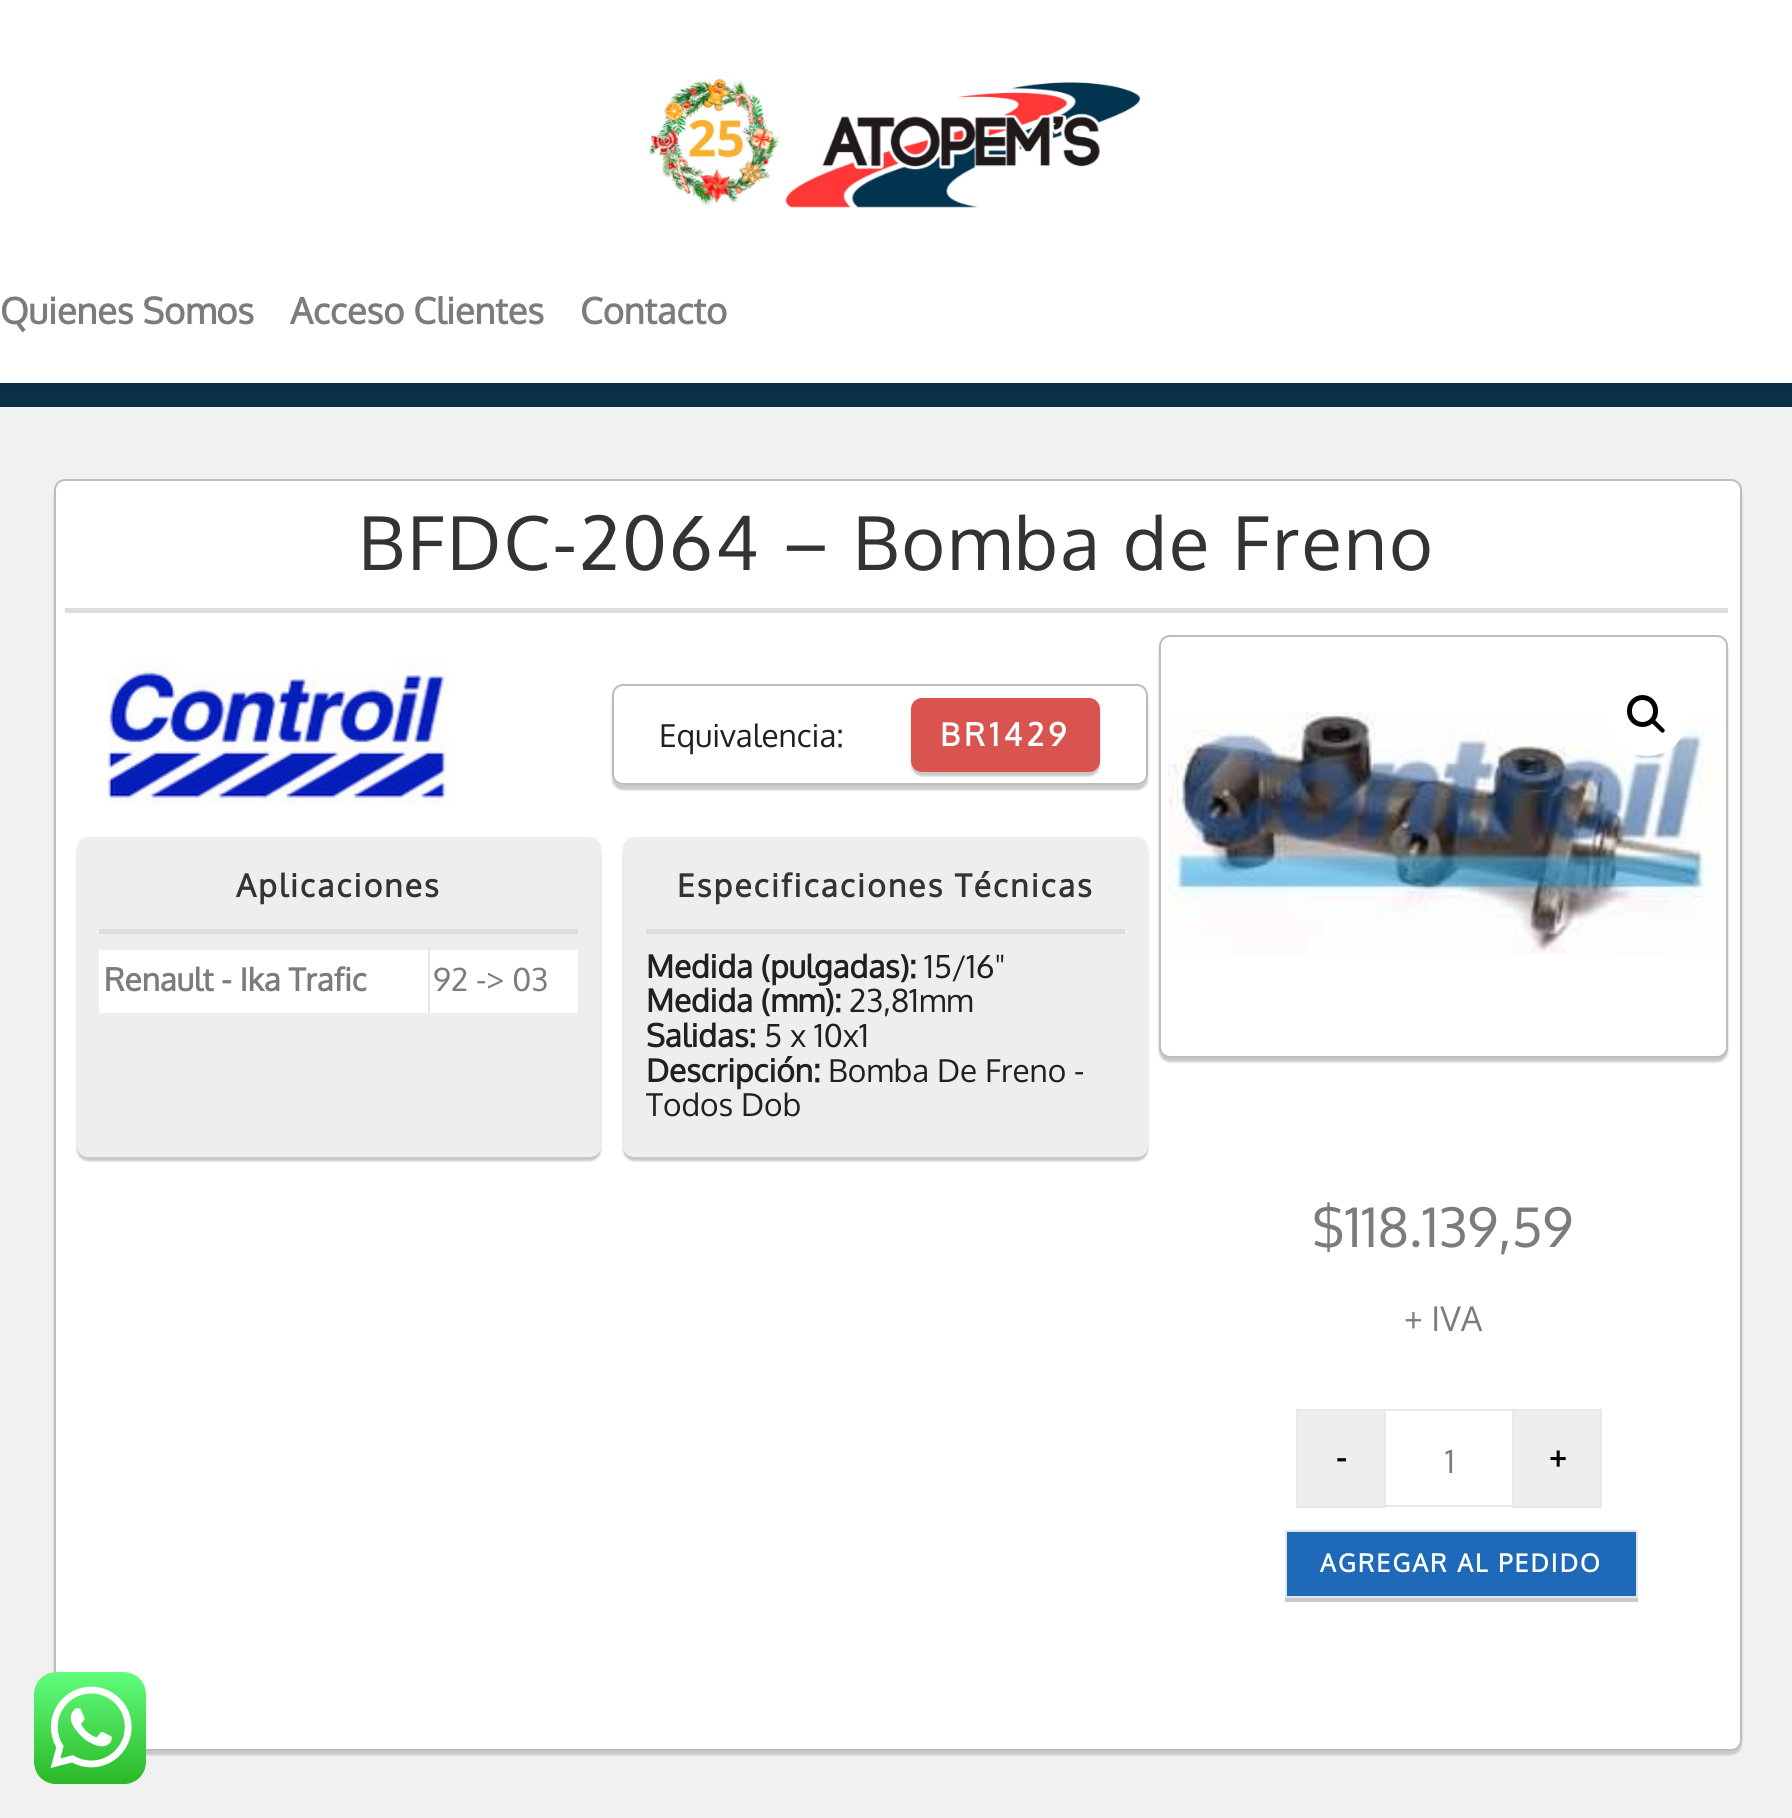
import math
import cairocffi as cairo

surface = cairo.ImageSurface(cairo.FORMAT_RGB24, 1792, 1818)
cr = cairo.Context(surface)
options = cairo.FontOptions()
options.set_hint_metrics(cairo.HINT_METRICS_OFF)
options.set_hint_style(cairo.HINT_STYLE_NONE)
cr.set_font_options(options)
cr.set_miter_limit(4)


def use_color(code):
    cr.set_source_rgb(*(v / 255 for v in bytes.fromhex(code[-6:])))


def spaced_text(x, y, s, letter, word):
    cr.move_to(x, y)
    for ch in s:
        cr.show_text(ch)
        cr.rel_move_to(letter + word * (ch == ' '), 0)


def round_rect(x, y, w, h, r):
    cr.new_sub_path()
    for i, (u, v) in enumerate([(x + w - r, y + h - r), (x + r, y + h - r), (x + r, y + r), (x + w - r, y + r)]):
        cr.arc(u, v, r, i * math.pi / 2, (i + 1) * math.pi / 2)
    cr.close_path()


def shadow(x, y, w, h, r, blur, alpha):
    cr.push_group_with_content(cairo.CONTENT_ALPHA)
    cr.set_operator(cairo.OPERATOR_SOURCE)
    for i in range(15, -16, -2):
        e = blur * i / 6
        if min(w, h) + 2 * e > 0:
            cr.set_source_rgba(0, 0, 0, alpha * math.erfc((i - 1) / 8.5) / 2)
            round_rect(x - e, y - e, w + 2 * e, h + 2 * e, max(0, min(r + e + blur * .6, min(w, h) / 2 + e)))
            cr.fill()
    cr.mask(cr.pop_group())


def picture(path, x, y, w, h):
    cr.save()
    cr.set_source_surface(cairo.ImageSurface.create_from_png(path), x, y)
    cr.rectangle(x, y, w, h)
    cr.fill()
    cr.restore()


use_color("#f1f1f1")
cr.paint()
use_color("#0c3049")
cr.rectangle(0, 383, 1792, 24)
cr.fill()
use_color("#000000")
shadow(0, 5, 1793, 382, 0, 5.5, 0.1)
use_color("#ffffff")
cr.rectangle(0, 0, 1792, 383)
cr.fill()
picture("img1.png", 649, 79, 492, 129)
cr.select_font_face("Oxygen", cairo.FONT_SLANT_NORMAL, cairo.FONT_WEIGHT_BOLD)
cr.set_font_size(36)
use_color("#7c7c7c")
cr.move_to(0, 324)
cr.show_text("Quienes Somos")
cr.move_to(290, 324)
cr.show_text("Acceso Clientes")
cr.move_to(580, 324)
cr.show_text("Contacto")
use_color("#c9c9c9")
shadow(54, 484, 1688, 1271, 11, 1, 1)
use_color("#ffffff")
round_rect(55, 480, 1686, 1270, 10)
cr.fill_preserve()
use_color("#bdbdbd")
cr.stroke()
cr.select_font_face("Oxygen")
cr.set_font_size(74.25)
use_color("#333333")
spaced_text(358, 570, "BFDC-2064 – Bomba de Freno", 2.25, 0)
use_color("#dddddd")
cr.rectangle(65, 608, 1663, 5)
cr.fill()
picture("img2.png", 108, 662, 347, 144)
cr.save()
cr.set_fill_rule(cairo.FILL_RULE_EVEN_ODD)
cr.new_path()
cr.move_to(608, 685)
cr.line_to(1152, 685)
cr.line_to(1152, 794)
cr.line_to(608, 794)
cr.close_path()
cr.move_to(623, 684)
cr.line_to(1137, 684)
cr.curve_to(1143, 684, 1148, 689, 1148, 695)
cr.line_to(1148, 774)
cr.curve_to(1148, 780, 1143, 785, 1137, 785)
cr.line_to(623, 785)
cr.curve_to(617, 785, 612, 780, 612, 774)
cr.line_to(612, 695)
cr.curve_to(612, 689, 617, 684, 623, 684)
cr.close_path()
cr.clip()
use_color("#c9c9c9")
shadow(612, 689, 536, 101, 11, 1, 1)
cr.restore()
round_rect(613, 685, 534, 99, 10)
use_color("#bdbdbd")
cr.stroke()
cr.set_font_size(31.5)
use_color("#202020")
cr.move_to(659, 747)
cr.show_text("Equivalencia:")
use_color("#c9c9c9")
shadow(911, 702, 189, 74, 11, 1, 1)
use_color("#d9534f")
round_rect(912, 699, 187, 72, 10)
cr.fill_preserve()
cr.stroke()
cr.select_font_face("Oxygen", cairo.FONT_SLANT_NORMAL, cairo.FONT_WEIGHT_BOLD)
use_color("#ffffff")
spaced_text(940, 746, "BR1429", 4.5, 0)
use_color("#c9c9c9")
shadow(77, 842, 524, 319, 11, 1, 1)
use_color("#eeeeee")
round_rect(77, 837, 524, 320, 11)
cr.fill()
use_color("#333333")
spaced_text(236, 897, "Aplicaciones", 2.25, 0)
use_color("#dddddd")
cr.rectangle(99, 929, 479, 5)
cr.fill()
use_color("#ffffff")
cr.rectangle(99, 950, 479, 63)
cr.fill()
use_color("#7c7c7c")
cr.move_to(104, 991)
cr.show_text("Renault - Ika Trafic")
use_color("#e2e6e7")
cr.rectangle(428, 947, 2, 66)
cr.fill()
cr.select_font_face("Oxygen")
use_color("#7c7c7c")
cr.move_to(433, 991)
cr.show_text("92 -> 03")
use_color("#c9c9c9")
shadow(623, 842, 525, 319, 11, 1, 1)
use_color("#eeeeee")
round_rect(623, 837, 525, 320, 11)
cr.fill()
cr.select_font_face("Oxygen", cairo.FONT_SLANT_NORMAL, cairo.FONT_WEIGHT_BOLD)
use_color("#333333")
spaced_text(677, 897, "Especificaciones Técnicas", 2.25, 0)
use_color("#dddddd")
cr.rectangle(646, 929, 479, 5)
cr.fill()
use_color("#202020")
cr.move_to(646, 978)
cr.show_text("Medida (pulgadas):")
cr.select_font_face("Oxygen")
cr.move_to(924, 978)
cr.show_text("15/16\"")
cr.select_font_face("Oxygen", cairo.FONT_SLANT_NORMAL, cairo.FONT_WEIGHT_BOLD)
cr.move_to(646, 1012)
cr.show_text("Medida (mm):")
cr.select_font_face("Oxygen")
cr.move_to(849, 1012)
cr.show_text("23,81mm")
cr.select_font_face("Oxygen", cairo.FONT_SLANT_NORMAL, cairo.FONT_WEIGHT_BOLD)
cr.move_to(646, 1047)
cr.show_text("Salidas:")
cr.select_font_face("Oxygen")
cr.move_to(764, 1047)
cr.show_text("5 x 10x1")
cr.select_font_face("Oxygen", cairo.FONT_SLANT_NORMAL, cairo.FONT_WEIGHT_BOLD)
cr.move_to(646, 1082)
cr.show_text("Descripción:")
cr.select_font_face("Oxygen")
cr.move_to(828, 1082)
cr.show_text("Bomba De Freno -")
cr.move_to(646, 1116)
cr.show_text("Todos Dob")
use_color("#c9c9c9")
shadow(1159, 639, 569, 423, 11, 1, 1)
use_color("#ffffff")
round_rect(1160, 636, 567, 421, 10)
cr.fill_preserve()
use_color("#bdbdbd")
cr.stroke()
picture("img3.png", 1168, 712, 551, 242)
use_color("#ffffff")
cr.arc(1647.5, 715.5, 40.5, 0, 2 * math.pi)
cr.fill()
round_rect(1629.5, 697.5, 26, 27, 13)
use_color("#000000")
cr.set_line_width(5)
cr.stroke()
cr.new_path()
cr.move_to(1651, 719.5)
cr.curve_to(1652, 718.5, 1653.5, 718.5, 1654.5, 719.5)
cr.line_to(1664, 729)
cr.curve_to(1665, 730, 1665, 731, 1664, 732)
cr.curve_to(1663, 733, 1661.5, 733, 1661, 732)
cr.line_to(1651, 722.5)
cr.curve_to(1650.5, 721.5, 1650.5, 720, 1651, 719.5)
cr.close_path()
cr.fill()
cr.set_font_size(54)
use_color("#7c7c7c")
cr.move_to(1312, 1247)
cr.show_text("$118.139,59")
cr.set_font_size(34)
cr.move_to(1404, 1331)
cr.show_text("+ IVA")
use_color("#eeeeee")
cr.rectangle(1297, 1410, 88, 97)
cr.fill_preserve()
use_color("#e9e9e9")
cr.set_line_width(2)
cr.stroke()
cr.select_font_face("Oxygen", cairo.FONT_SLANT_NORMAL, cairo.FONT_WEIGHT_BOLD)
cr.set_font_size(31.5)
use_color("#000000")
cr.move_to(1336, 1469)
cr.show_text("-")
use_color("#e9e9e9")
cr.rectangle(1386, 1409, 126, 2)
cr.fill()
cr.rectangle(1386, 1505, 126, 2)
cr.fill()
cr.select_font_face("Oxygen")
use_color("#7c7c7c")
cr.move_to(1445, 1473)
cr.show_text("1")
use_color("#eeeeee")
cr.rectangle(1513, 1410, 88, 97)
cr.fill_preserve()
use_color("#e9e9e9")
cr.stroke()
cr.select_font_face("Oxygen", cairo.FONT_SLANT_NORMAL, cairo.FONT_WEIGHT_BOLD)
use_color("#000000")
cr.move_to(1549, 1469)
cr.show_text("+")
use_color("#c9c9c9")
cr.rectangle(1285, 1598, 353, 4)
cr.fill()
use_color("#1e69b8")
cr.rectangle(1286, 1531, 351, 66)
cr.fill_preserve()
use_color("#e2e6e7")
cr.stroke()
cr.set_font_size(24.75)
use_color("#ffffff")
spaced_text(1320, 1572, "AGREGAR AL PEDIDO", 2.25, 0)
picture("img4.png", 34, 1672, 112, 112)
surface.write_to_png("result.png")
